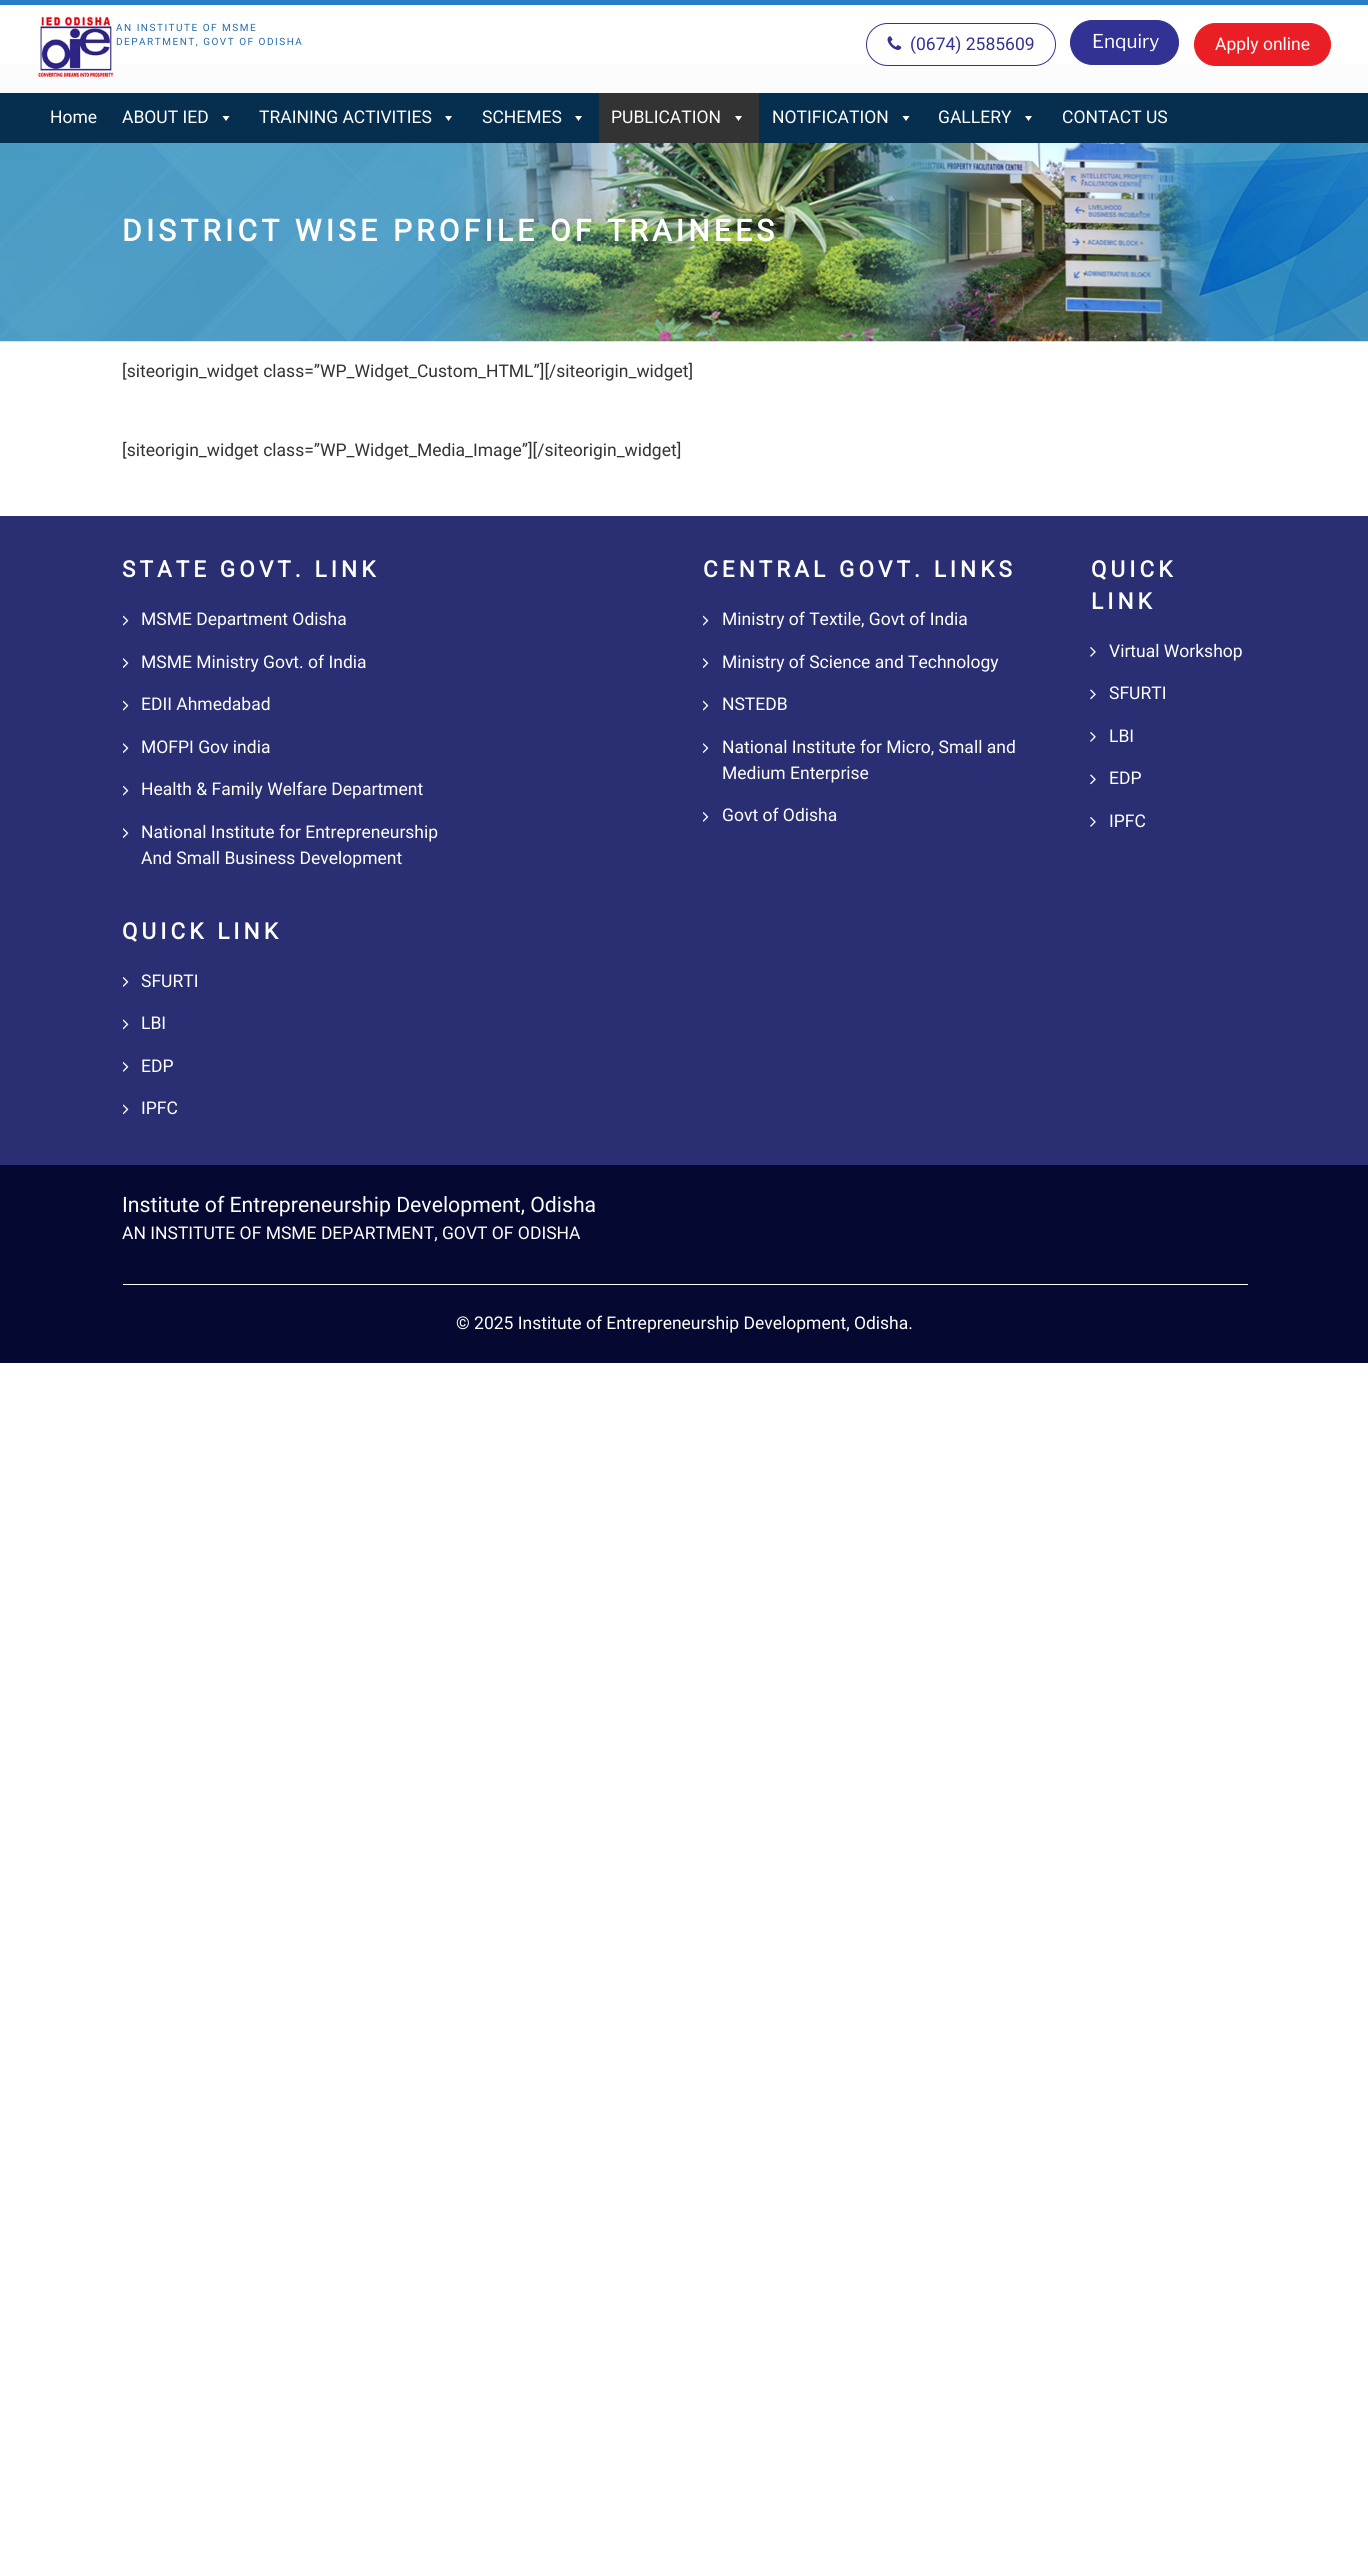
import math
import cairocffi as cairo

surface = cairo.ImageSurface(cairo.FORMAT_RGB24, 1368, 2563)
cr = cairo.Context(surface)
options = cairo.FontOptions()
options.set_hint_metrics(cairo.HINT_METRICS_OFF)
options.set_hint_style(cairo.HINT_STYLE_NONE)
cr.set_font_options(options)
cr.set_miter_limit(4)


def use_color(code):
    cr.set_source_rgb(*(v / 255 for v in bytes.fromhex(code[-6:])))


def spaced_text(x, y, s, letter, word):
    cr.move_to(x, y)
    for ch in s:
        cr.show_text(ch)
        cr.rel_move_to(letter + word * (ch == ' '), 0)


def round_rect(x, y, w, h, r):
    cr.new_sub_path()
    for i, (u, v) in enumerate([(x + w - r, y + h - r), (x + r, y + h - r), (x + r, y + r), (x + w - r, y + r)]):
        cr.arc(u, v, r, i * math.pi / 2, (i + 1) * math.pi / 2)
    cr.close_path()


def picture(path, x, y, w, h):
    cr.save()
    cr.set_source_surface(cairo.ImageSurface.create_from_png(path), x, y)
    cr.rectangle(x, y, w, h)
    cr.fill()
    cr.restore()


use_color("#ffffff")
cr.paint()
gradient = cairo.LinearGradient(684, 5, 684, 143)
gradient.add_color_stop_rgba(0, 1, 1, 1, 1)
gradient.add_color_stop_rgba(0.85, 0.98, 0.98, 0.98, 1)
gradient.add_color_stop_rgba(1, 1, 1, 1, 0.47)
cr.set_source(gradient)
cr.rectangle(0, 64, 1368, 29)
cr.fill()
use_color("#287bc7")
cr.rectangle(0, 0, 1368, 5)
cr.fill()
picture("img1.png", 38, 16, 76, 61)
cr.select_font_face("Roboto")
cr.set_font_size(10)
use_color("#246cae")
spaced_text(116, 31, "AN INSTITUTE OF MSME", 1.5, 0)
spaced_text(116, 45, "DEPARTMENT, GOVT OF ODISHA", 1.5, 0)
round_rect(866.5, 23.5, 189, 42, 21)
use_color("#323294")
cr.set_line_width(1)
cr.stroke()
picture("img2.png", 887, 36, 15, 14)
cr.set_font_size(17.5)
cr.move_to(910, 50)
cr.show_text("(0674) 2585609")
round_rect(1070.5, 20.5, 108, 44, 22)
cr.fill_preserve()
cr.stroke()
cr.select_font_face("Libre Franklin Thin")
cr.set_font_size(19)
use_color("#ffffff")
cr.move_to(1092, 48)
cr.show_text("Enquiry")
use_color("#ea1f25")
round_rect(1194.5, 23.5, 136, 42, 21)
cr.fill_preserve()
cr.stroke()
cr.select_font_face("Roboto")
cr.set_font_size(17.5)
use_color("#ffffff")
cr.move_to(1215, 50)
cr.show_text("Apply online")
use_color("#062e4f")
cr.rectangle(0, 93, 1368, 50)
cr.fill()
use_color("#ffffff")
cr.move_to(50, 123)
cr.show_text("Home")
cr.move_to(122, 123)
cr.show_text("ABOUT IED")
cr.new_path()
cr.move_to(229.5, 116)
cr.line_to(226, 121)
cr.line_to(222.5, 116)
cr.close_path()
cr.fill()
cr.move_to(259, 123)
cr.show_text("TRAINING ACTIVITIES")
cr.new_path()
cr.move_to(452, 116)
cr.line_to(448.5, 121)
cr.line_to(445, 116)
cr.close_path()
cr.fill()
cr.move_to(482, 123)
cr.show_text("SCHEMES")
cr.new_path()
cr.move_to(582, 116)
cr.line_to(578.5, 121)
cr.line_to(575, 116)
cr.close_path()
cr.fill()
use_color("#333333")
cr.rectangle(599, 93, 160, 50)
cr.fill()
use_color("#ffffff")
cr.move_to(611, 123)
cr.show_text("PUBLICATION")
cr.new_path()
cr.move_to(742, 116)
cr.line_to(738.5, 121)
cr.line_to(735, 116)
cr.close_path()
cr.fill()
cr.move_to(772, 123)
cr.show_text("NOTIFICATION")
cr.new_path()
cr.move_to(909.5, 116)
cr.line_to(906, 121)
cr.line_to(902.5, 116)
cr.close_path()
cr.fill()
cr.move_to(938, 123)
cr.show_text("GALLERY")
cr.new_path()
cr.move_to(1032, 116)
cr.line_to(1028.5, 121)
cr.line_to(1025, 116)
cr.close_path()
cr.fill()
cr.move_to(1062, 123)
cr.show_text("CONTACT US")
picture("img3.png", 0, 143, 1368, 199)
cr.select_font_face("Roboto", cairo.FONT_SLANT_NORMAL, cairo.FONT_WEIGHT_BOLD)
cr.set_font_size(30)
spaced_text(122, 241, "DISTRICT WISE PROFILE OF TRAINEES", 4.2, 0)
cr.select_font_face("Roboto")
cr.set_font_size(17.5)
use_color("#333333")
cr.move_to(122, 377)
cr.show_text("[siteorigin_widget class=”WP_Widget_Custom_HTML”][/siteorigin_widget]")
cr.move_to(122, 456)
cr.show_text("[siteorigin_widget class=”WP_Widget_Media_Image”][/siteorigin_widget]")
use_color("#292f72")
cr.rectangle(0, 516, 1368, 649)
cr.fill()
cr.select_font_face("Roboto", cairo.FONT_SLANT_NORMAL, cairo.FONT_WEIGHT_BOLD)
cr.set_font_size(22.5)
use_color("#ffffff")
spaced_text(122, 577, "STATE GOVT. LINK", 4.1, 0)
picture("img4.png", 123, 615, 6, 11)
cr.select_font_face("Roboto")
cr.set_font_size(17.5)
cr.move_to(141, 625)
cr.show_text("MSME Department Odisha")
picture("img5.png", 123, 658, 6, 10)
cr.move_to(141, 668)
cr.show_text("MSME Ministry Govt. of India")
picture("img4.png", 123, 700, 6, 11)
cr.move_to(141, 710)
cr.show_text("EDII Ahmedabad")
picture("img5.png", 123, 743, 6, 10)
cr.move_to(141, 753)
cr.show_text("MOFPI Gov india")
picture("img4.png", 123, 785, 6, 11)
cr.move_to(141, 795)
cr.show_text("Health & Family Welfare Department")
picture("img5.png", 123, 828, 6, 10)
cr.move_to(141, 838)
cr.show_text("National Institute for Entrepreneurship")
cr.move_to(141, 864)
cr.show_text("And Small Business Development")
cr.select_font_face("Roboto", cairo.FONT_SLANT_NORMAL, cairo.FONT_WEIGHT_BOLD)
cr.set_font_size(22.5)
spaced_text(122, 939, "QUICK LINK", 4.1, 0)
picture("img6.png", 123, 977, 6, 10)
cr.select_font_face("Roboto")
cr.set_font_size(17.5)
cr.move_to(141, 987)
cr.show_text("SFURTI")
picture("img7.png", 123, 1019, 6, 11)
cr.move_to(141, 1029)
cr.show_text("LBI")
picture("img6.png", 123, 1062, 6, 10)
cr.move_to(141, 1072)
cr.show_text("EDP")
picture("img7.png", 123, 1104, 6, 11)
cr.move_to(141, 1114)
cr.show_text("IPFC")
cr.select_font_face("Roboto", cairo.FONT_SLANT_NORMAL, cairo.FONT_WEIGHT_BOLD)
cr.set_font_size(22.5)
spaced_text(703, 577, "CENTRAL GOVT. LINKS", 4.1, 0)
picture("img4.png", 703, 615, 6, 11)
cr.select_font_face("Roboto")
cr.set_font_size(17.5)
cr.move_to(722, 625)
cr.show_text("Ministry of Textile, Govt of India")
picture("img5.png", 703, 658, 6, 10)
cr.move_to(722, 668)
cr.show_text("Ministry of Science and Technology")
picture("img4.png", 703, 700, 6, 11)
cr.move_to(722, 710)
cr.show_text("NSTEDB")
picture("img5.png", 703, 743, 6, 10)
cr.move_to(722, 753)
cr.show_text("National Institute for Micro, Small and")
cr.move_to(722, 779)
cr.show_text("Medium Enterprise")
picture("img6.png", 703, 812, 6, 10)
cr.move_to(722, 821)
cr.show_text("Govt of Odisha")
cr.select_font_face("Roboto", cairo.FONT_SLANT_NORMAL, cairo.FONT_WEIGHT_BOLD)
cr.set_font_size(22.5)
spaced_text(1091, 577, "QUICK", 4.1, 0)
spaced_text(1091, 609, "LINK", 4.1, 0)
picture("img8.png", 1090, 647, 6, 10)
cr.select_font_face("Roboto")
cr.set_font_size(17.5)
cr.move_to(1109, 657)
cr.show_text("Virtual Workshop")
picture("img9.png", 1090, 689, 6, 11)
cr.move_to(1109, 699)
cr.show_text("SFURTI")
picture("img8.png", 1090, 732, 6, 10)
cr.move_to(1109, 742)
cr.show_text("LBI")
picture("img9.png", 1090, 774, 6, 11)
cr.move_to(1109, 784)
cr.show_text("EDP")
picture("img8.png", 1090, 817, 6, 10)
cr.move_to(1109, 827)
cr.show_text("IPFC")
use_color("#050831")
cr.rectangle(0, 1165, 1368, 198)
cr.fill()
cr.set_font_size(21.25)
use_color("#ffffff")
cr.move_to(122, 1212)
cr.show_text("Institute of Entrepreneurship Development, Odisha")
cr.set_font_size(17.5)
cr.move_to(122, 1239)
cr.show_text("AN INSTITUTE OF MSME DEPARTMENT, GOVT OF ODISHA")
cr.rectangle(123, 1284, 1125, 1)
cr.fill()
cr.move_to(456, 1329)
cr.show_text("© 2025 Institute of Entrepreneurship Development, Odisha.")
surface.write_to_png("result.png")
